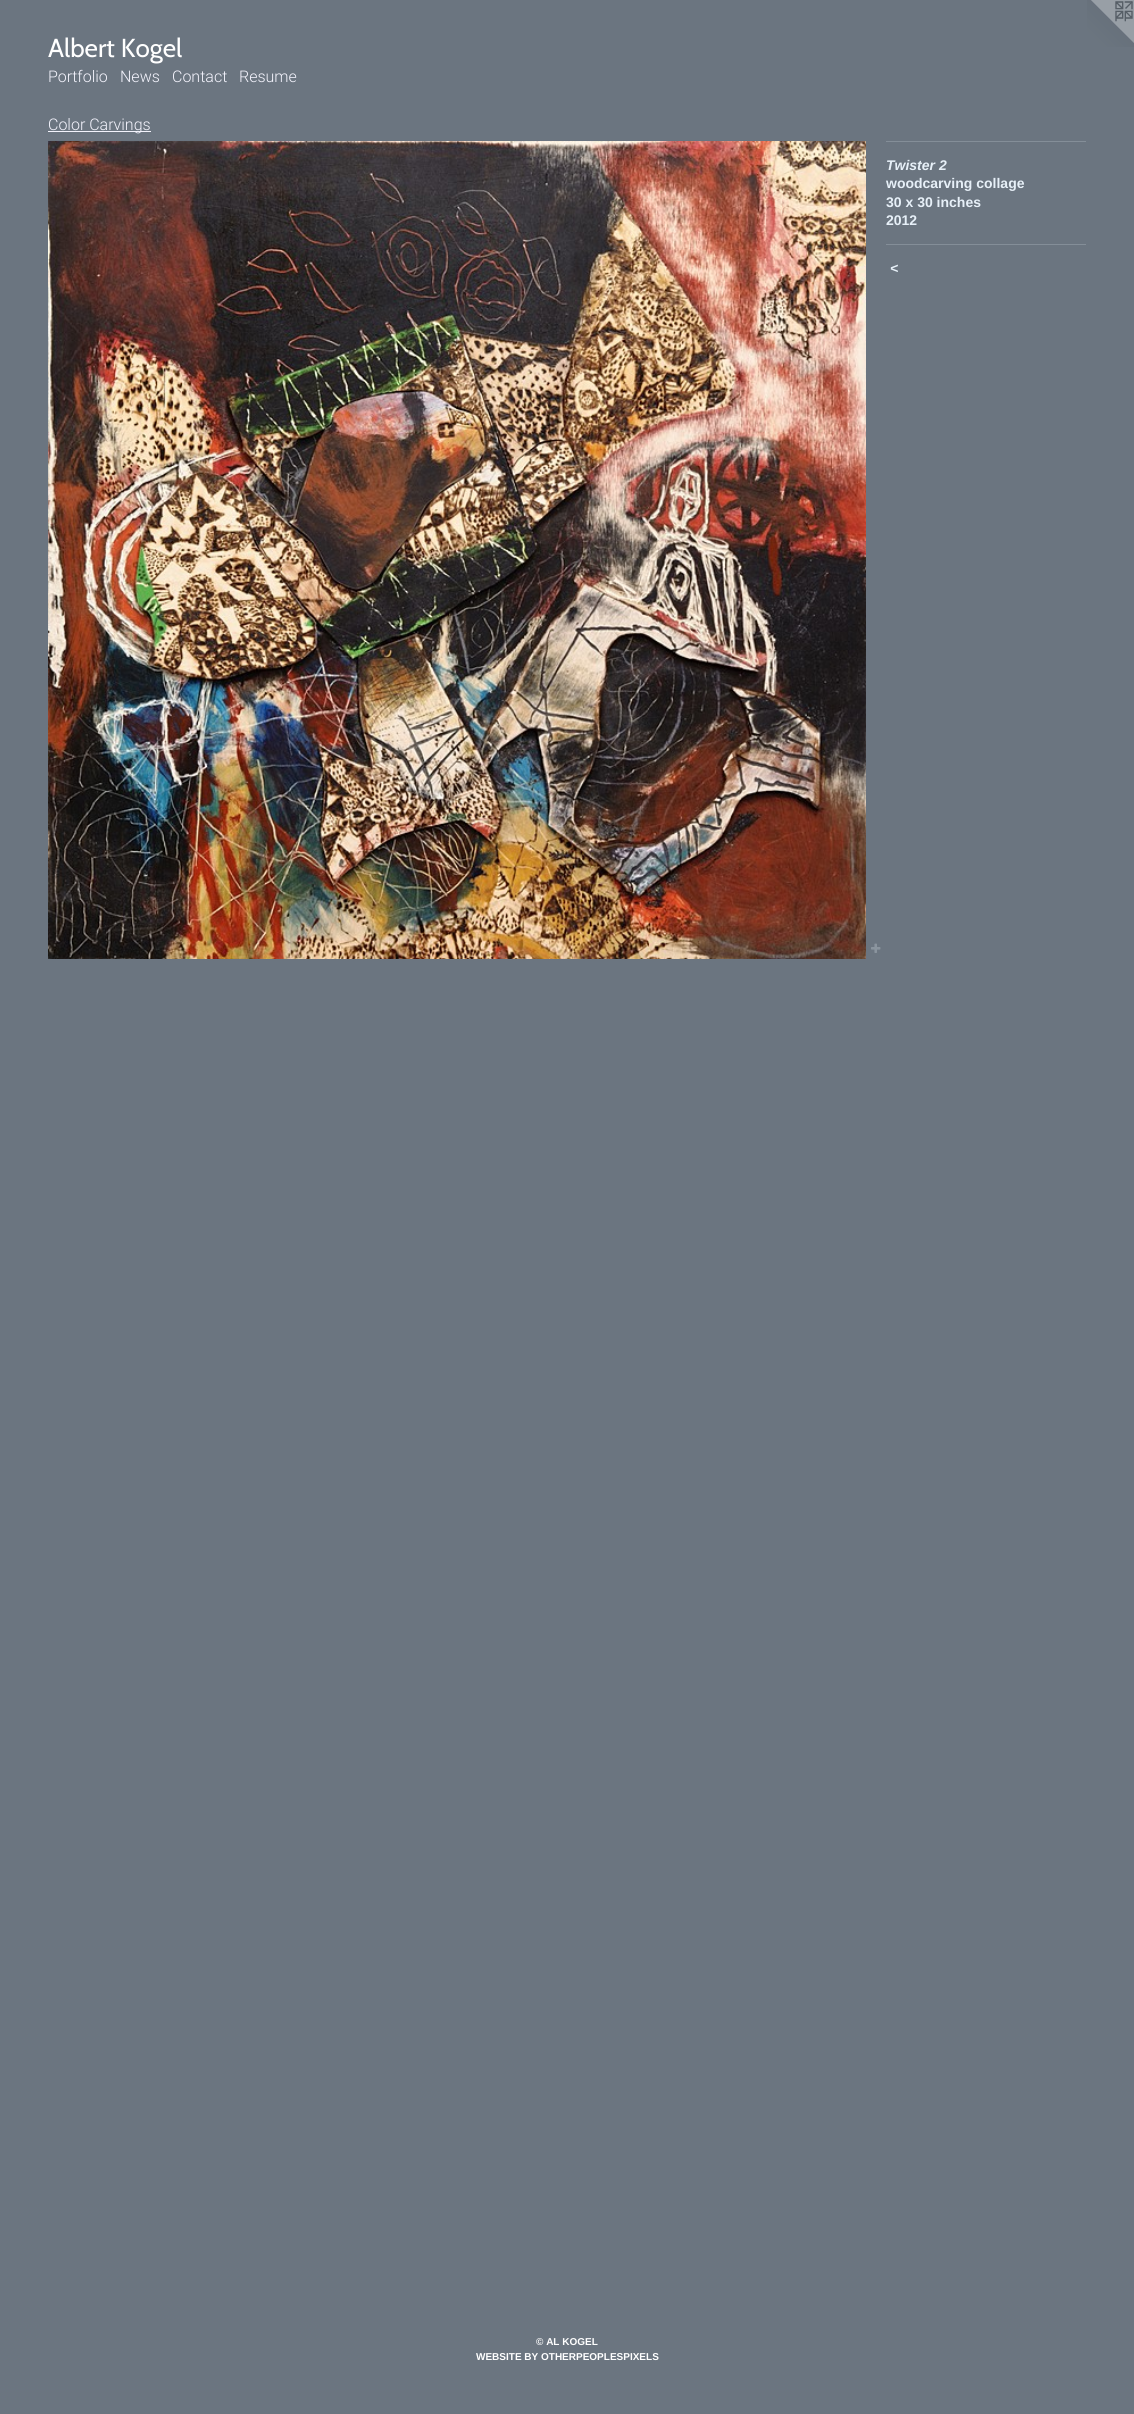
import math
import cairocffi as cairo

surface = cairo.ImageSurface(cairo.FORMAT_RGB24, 1134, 2414)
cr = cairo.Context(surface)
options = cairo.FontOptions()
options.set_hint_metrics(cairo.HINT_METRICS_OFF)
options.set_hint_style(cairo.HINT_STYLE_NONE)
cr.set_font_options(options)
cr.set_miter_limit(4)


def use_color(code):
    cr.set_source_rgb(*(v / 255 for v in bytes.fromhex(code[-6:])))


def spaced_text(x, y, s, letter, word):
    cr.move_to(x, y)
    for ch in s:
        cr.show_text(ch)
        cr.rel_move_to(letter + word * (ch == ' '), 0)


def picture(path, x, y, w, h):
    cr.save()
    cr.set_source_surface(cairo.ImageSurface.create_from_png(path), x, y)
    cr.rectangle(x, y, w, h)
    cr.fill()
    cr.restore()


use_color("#6b7580")
cr.paint()
picture("img1.png", 1087, 0, 47, 47)
cr.select_font_face("Cabin")
cr.set_font_size(26)
use_color("#ffffff")
cr.move_to(48, 57)
cr.show_text("Albert Kogel")
cr.select_font_face("Roboto Light")
cr.set_font_size(16)
use_color("#f3f3fc")
cr.move_to(48, 82)
cr.show_text("Portfolio")
cr.move_to(120, 82)
cr.show_text("News")
cr.move_to(172, 82)
cr.show_text("Contact")
cr.move_to(239, 82)
cr.show_text("Resume")
cr.rectangle(48, 131, 103, 1)
cr.fill()
cr.move_to(48, 130)
cr.show_text("Color Carvings")
picture("img2.png", 48, 141, 818, 818)
picture("img3.png", 871, 943, 10, 10)
use_color("#848e98")
cr.rectangle(886, 141, 200, 1)
cr.fill()
cr.select_font_face("Liberation Sans", cairo.FONT_SLANT_ITALIC, cairo.FONT_WEIGHT_BOLD)
cr.set_font_size(14)
use_color("#e7f0f8")
cr.move_to(886, 170)
cr.show_text("Twister 2")
cr.select_font_face("Liberation Sans", cairo.FONT_SLANT_NORMAL, cairo.FONT_WEIGHT_BOLD)
cr.move_to(886, 188)
cr.show_text("woodcarving collage")
cr.move_to(886, 207)
cr.show_text("30 x 30 inches")
cr.move_to(886, 225)
cr.show_text("2012")
use_color("#848e98")
cr.rectangle(886, 244, 200, 1)
cr.fill()
cr.select_font_face("Liberation Sans", cairo.FONT_SLANT_ITALIC, cairo.FONT_WEIGHT_BOLD)
use_color("#e7f0f8")
spaced_text(890, 273, "<", 1, 0)
cr.select_font_face("Liberation Sans", cairo.FONT_SLANT_NORMAL, cairo.FONT_WEIGHT_BOLD)
cr.set_font_size(10)
use_color("#ffffff")
cr.move_to(536, 2345)
cr.show_text("© AL KOGEL")
cr.move_to(476, 2360)
cr.show_text("WEBSITE BY OTHERPEOPLESPIXELS")
surface.write_to_png("result.png")
